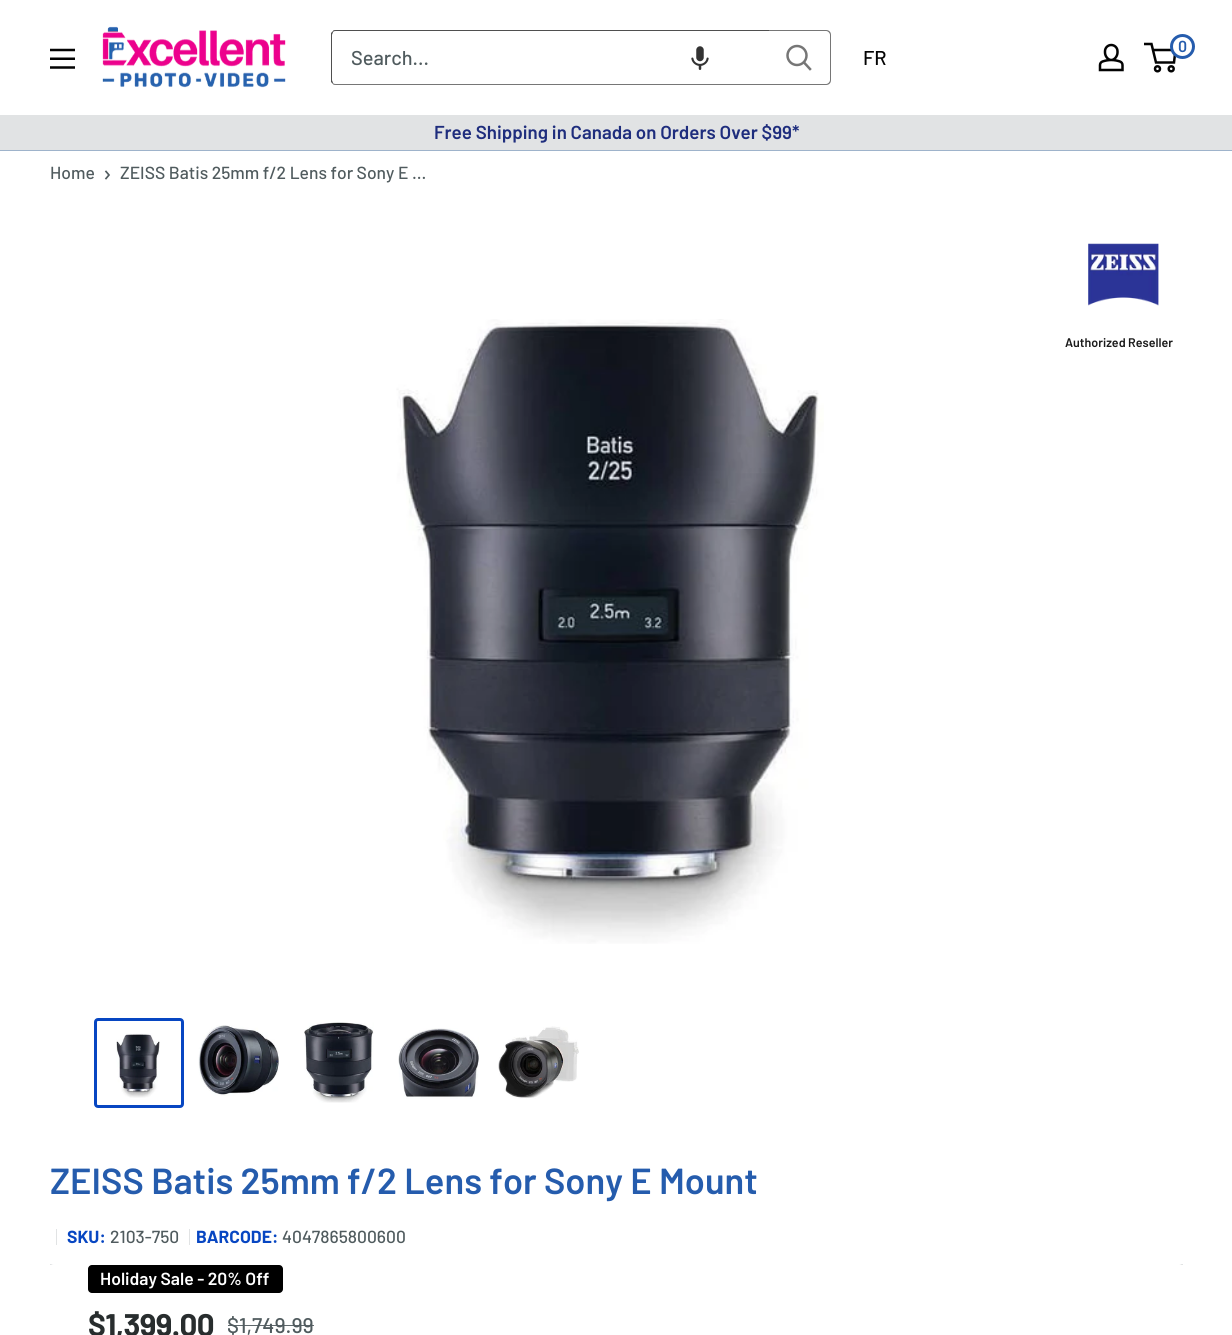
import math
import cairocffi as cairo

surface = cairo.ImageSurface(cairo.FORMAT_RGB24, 1232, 1335)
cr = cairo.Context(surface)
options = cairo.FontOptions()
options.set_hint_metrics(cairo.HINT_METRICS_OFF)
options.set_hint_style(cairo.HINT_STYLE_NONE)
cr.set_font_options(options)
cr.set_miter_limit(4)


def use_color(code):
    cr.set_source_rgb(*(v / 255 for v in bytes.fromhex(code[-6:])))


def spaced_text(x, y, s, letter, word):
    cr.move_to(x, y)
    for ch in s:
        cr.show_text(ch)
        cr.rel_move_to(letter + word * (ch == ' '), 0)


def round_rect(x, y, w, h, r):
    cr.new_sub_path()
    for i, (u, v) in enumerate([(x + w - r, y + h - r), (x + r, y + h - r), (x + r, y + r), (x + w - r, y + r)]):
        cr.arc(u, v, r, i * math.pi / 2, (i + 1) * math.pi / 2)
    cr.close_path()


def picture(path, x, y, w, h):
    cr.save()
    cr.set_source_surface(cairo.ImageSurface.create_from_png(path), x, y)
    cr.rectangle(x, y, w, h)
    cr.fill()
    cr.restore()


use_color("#ffffff")
cr.paint()
picture("img1.png", 102, 26, 184, 62)
picture("img2.png", 1098, 43, 26, 29)
cr.arc(1157.5, 68.8, 2.5, 0, 2 * math.pi)
use_color("#030303")
cr.set_line_width(2.5)
cr.stroke()
cr.arc(1171.2, 68.8, 2.5, 0, 2 * math.pi)
cr.stroke()
cr.new_path()
cr.move_to(1153, 50)
cr.line_to(1175.5, 50)
cr.line_to(1174, 62.5)
cr.line_to(1156, 62.5)
cr.line_to(1151.5, 44)
cr.line_to(1144, 44)
cr.stroke()
use_color("#ffffff")
cr.arc(1182.5, 46.5, 11, 0, 2 * math.pi)
cr.fill_preserve()
use_color("#255cad")
cr.set_line_width(3)
cr.stroke()
cr.select_font_face("Barlow SemiBold")
cr.set_font_size(16)
cr.move_to(1178, 52)
cr.show_text("0")
picture("img3.png", 50, 48, 25, 21)
use_color("#4f4f4f")
cr.new_path()
cr.move_to(336, 30)
cr.curve_to(335, 30, 333, 30, 333, 31)
cr.line_to(333, 32)
cr.curve_to(334, 31, 335, 31, 336, 31)
cr.line_to(769, 31)
cr.line_to(769, 30)
cr.close_path()
cr.fill()
use_color("#767676")
cr.new_path()
cr.move_to(769, 85)
cr.line_to(769, 84)
cr.line_to(336, 84)
cr.curve_to(335, 84, 334, 84, 333, 83)
cr.line_to(333, 84)
cr.curve_to(333, 85, 335, 85, 336, 85)
cr.close_path()
cr.fill()
use_color("#4f4f4f")
cr.new_path()
cr.move_to(331, 33)
cr.line_to(333, 31)
cr.line_to(333, 32)
cr.curve_to(333, 33, 332, 34, 332, 35)
cr.line_to(332, 80)
cr.curve_to(332, 81, 333, 82, 333, 83)
cr.line_to(333, 84)
cr.line_to(331, 82)
cr.close_path()
cr.fill()
cr.select_font_face("Barlow Medium")
cr.set_font_size(20)
use_color("#505b5e")
cr.move_to(351, 65)
cr.show_text("Search...")
picture("img4.png", 691, 46, 18, 24)
use_color("#767676")
cr.set_fill_rule(cairo.FILL_RULE_EVEN_ODD)
cr.new_path()
cr.move_to(769, 30)
cr.line_to(826, 30)
cr.curve_to(829, 30, 831, 32, 831, 35)
cr.line_to(831, 80)
cr.curve_to(831, 83, 829, 85, 826, 85)
cr.line_to(769, 85)
cr.close_path()
cr.move_to(769, 31)
cr.line_to(826, 31)
cr.curve_to(828, 31, 830, 33, 830, 35)
cr.line_to(830, 80)
cr.curve_to(830, 82, 828, 84, 826, 84)
cr.line_to(769, 84)
cr.close_path()
cr.fill()
cr.new_path()
cr.move_to(810, 69)
cr.line_to(804, 62.5)
cr.set_line_width(2.5)
cr.set_line_cap(cairo.LINE_CAP_SQUARE)
cr.stroke()
cr.arc(797, 55.5, 9.5, 0, 2 * math.pi)
cr.set_line_cap(cairo.LINE_CAP_BUTT)
cr.stroke()
use_color("#030303")
cr.move_to(863, 65)
cr.show_text("FR")
use_color("#e1e3e4")
cr.rectangle(0, 115, 1232, 35)
cr.fill()
use_color("#9eb3cb")
cr.rectangle(0, 150, 1232, 1)
cr.fill()
cr.select_font_face("Barlow SemiBold")
cr.set_font_size(18.75)
use_color("#1e2d7d")
cr.move_to(434, 139)
cr.show_text("Free Shipping in Canada on Orders Over $99*")
cr.select_font_face("Barlow Medium")
cr.set_font_size(17.5)
use_color("#505b5e")
cr.move_to(50, 179)
cr.show_text("Home")
cr.new_path()
cr.move_to(106, 171.5)
cr.line_to(109, 175)
cr.line_to(106, 178.5)
cr.set_line_width(1.7)
cr.set_line_cap(cairo.LINE_CAP_SQUARE)
cr.stroke()
cr.move_to(120, 179)
cr.show_text("ZEISS Batis 25mm f/2 Lens for Sony E ...")
picture("img5.png", 396, 319, 428, 625)
round_rect(95.5, 1019.5, 87, 87, 2.5)
use_color("#0746c2")
cr.set_line_width(3)
cr.set_line_cap(cairo.LINE_CAP_BUTT)
cr.stroke()
picture("img6.png", 116, 1033, 44, 65)
picture("img7.png", 198, 1025, 81, 71)
picture("img8.png", 304, 1022, 70, 81)
picture("img9.png", 398, 1028, 81, 71)
picture("img10.png", 498, 1026, 81, 73)
picture("img11.png", 1088, 243, 71, 63)
cr.select_font_face("Barlow SemiBold")
cr.set_font_size(12.5)
use_color("#1a1a1a")
cr.move_to(1065, 347)
cr.show_text("Authorized Reseller")
cr.set_font_size(36.25)
use_color("#255cad")
cr.move_to(50, 1194)
cr.show_text("ZEISS Batis 25mm f/2 Lens for Sony E Mount")
use_color("#e1e3e4")
cr.rectangle(56, 1229, 1, 16)
cr.fill()
cr.select_font_face("Barlow", cairo.FONT_SLANT_NORMAL, cairo.FONT_WEIGHT_BOLD)
cr.set_font_size(17.5)
use_color("#0746c2")
cr.move_to(67, 1243)
cr.show_text("SKU:")
cr.select_font_face("Barlow Medium")
use_color("#505b5e")
cr.move_to(110, 1243)
cr.show_text("2103-750")
use_color("#e1e3e4")
cr.rectangle(189, 1229, 1, 16)
cr.fill()
cr.select_font_face("Barlow", cairo.FONT_SLANT_NORMAL, cairo.FONT_WEIGHT_BOLD)
use_color("#0746c2")
cr.move_to(196, 1243)
cr.show_text("BARCODE:")
cr.select_font_face("Barlow Medium")
use_color("#505b5e")
cr.move_to(282, 1243)
cr.show_text("4047865800600")
use_color("#e1e3e4")
cr.rectangle(50, 1264, 1133, 1)
cr.fill()
use_color("#ffffff")
cr.set_fill_rule(cairo.FILL_RULE_WINDING)
cr.new_path()
cr.move_to(54, 1264)
cr.curve_to(51, 1264, 50, 1266, 50, 1269)
cr.curve_to(50, 1267, 52, 1265, 54, 1265)
cr.line_to(1179, 1265)
cr.curve_to(1181, 1265, 1182, 1267, 1182, 1269)
cr.line_to(1182, 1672)
cr.line_to(1183, 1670)
cr.line_to(1183, 1268)
cr.curve_to(1183, 1266, 1181, 1264, 1179, 1264)
cr.close_path()
cr.fill()
use_color("#000000")
round_rect(88, 1265, 195, 28, 4)
cr.fill()
cr.select_font_face("Barlow SemiBold")
use_color("#ffffff")
cr.move_to(100, 1285)
cr.show_text("Holiday Sale - 20% Off")
cr.select_font_face("Barlow", cairo.FONT_SLANT_NORMAL, cairo.FONT_WEIGHT_BOLD)
cr.set_font_size(31.25)
use_color("#282d2e")
spaced_text(88, 1336, "$1,399.00", -0.6, 0)
cr.select_font_face("Barlow Medium")
cr.set_font_size(21.25)
use_color("#505b5e")
cr.move_to(227, 1333)
cr.show_text("$1,749.99")
cr.set_source_rgba(0.314, 0.357, 0.369, 0.7)
cr.rectangle(228, 1325, 86, 1)
cr.fill()
cr.rectangle(228, 1325, 86, 1)
cr.fill()
surface.write_to_png("result.png")
